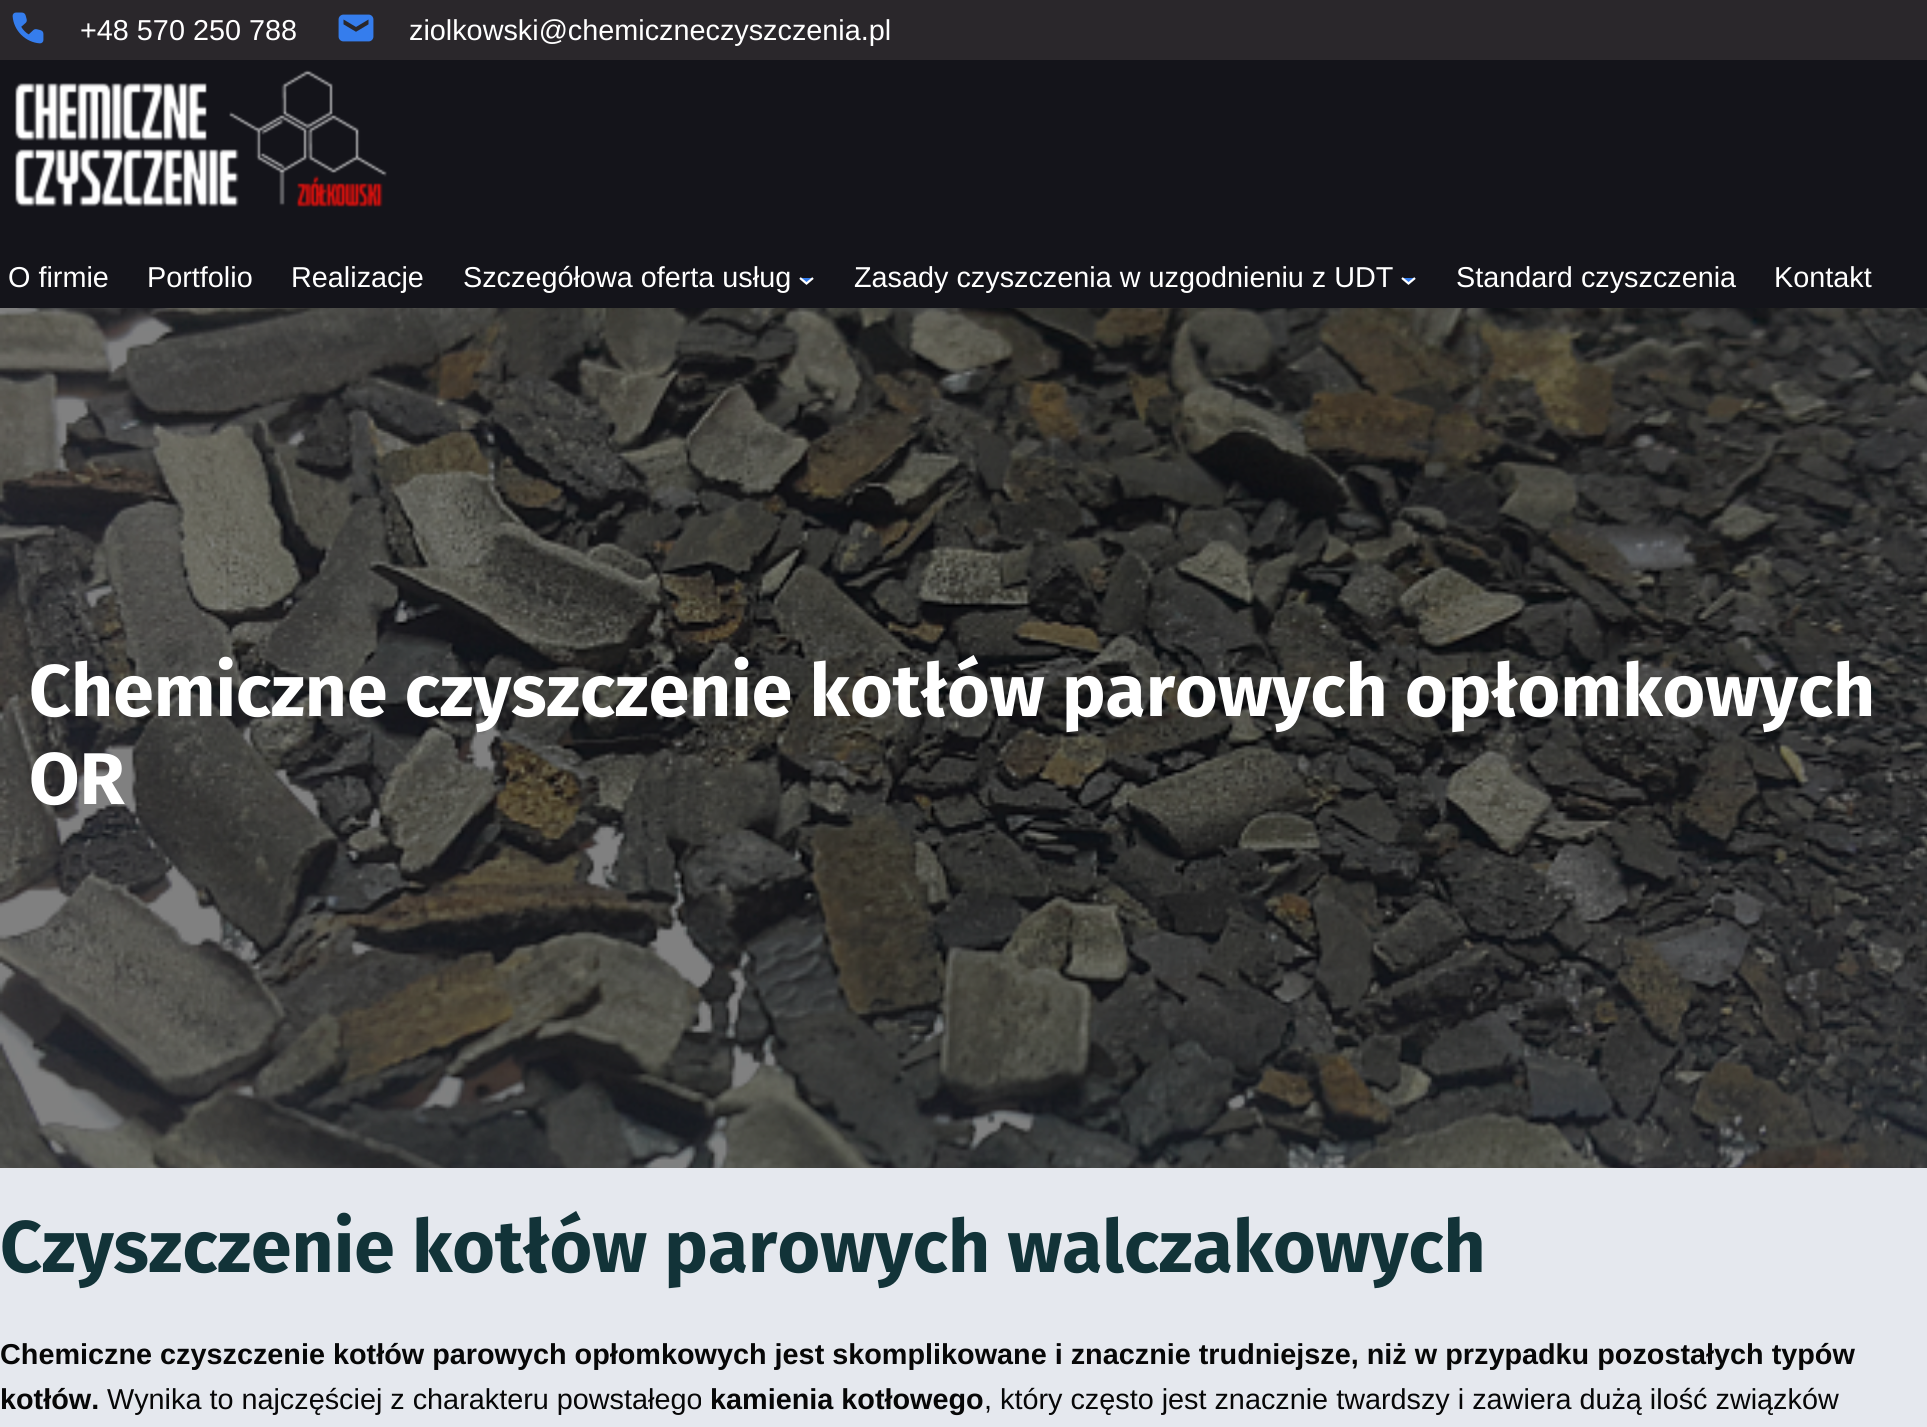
import math
import cairocffi as cairo

surface = cairo.ImageSurface(cairo.FORMAT_RGB24, 1927, 1427)
cr = cairo.Context(surface)
options = cairo.FontOptions()
options.set_hint_metrics(cairo.HINT_METRICS_OFF)
options.set_hint_style(cairo.HINT_STYLE_NONE)
cr.set_font_options(options)
cr.set_miter_limit(4)


def use_color(code):
    cr.set_source_rgb(*(v / 255 for v in bytes.fromhex(code[-6:])))


def picture(path, x, y, w, h):
    cr.save()
    cr.set_source_surface(cairo.ImageSurface.create_from_png(path), x, y)
    cr.rectangle(x, y, w, h)
    cr.fill()
    cr.restore()


use_color("#e5e8ee")
cr.paint()
use_color("#2a272b")
cr.rectangle(0, 0, 1927, 60)
cr.fill()
picture("img1.png", 12, 12, 32, 32)
cr.select_font_face("Liberation Sans")
cr.set_font_size(28.8)
use_color("#ffffff")
cr.move_to(80, 40)
cr.show_text("+48 570 250 788")
picture("img2.png", 338, 14, 36, 28)
cr.move_to(409, 40)
cr.show_text("ziolkowski@chemiczneczyszczenia.pl")
use_color("#14141a")
cr.rectangle(0, 60, 1927, 248)
cr.fill()
picture("img3.png", 15, 70, 372, 137)
use_color("#ffffff")
cr.move_to(8, 287)
cr.show_text("O firmie")
cr.move_to(147, 287)
cr.show_text("Portfolio")
cr.move_to(291, 287)
cr.show_text("Realizacje")
cr.move_to(463, 287)
cr.show_text("Szczegółowa oferta usług")
use_color("#357ded")
cr.new_path()
cr.move_to(800, 278)
cr.line_to(806.5, 283.5)
cr.line_to(813, 278)
cr.fill_preserve()
use_color("#ffffff")
cr.set_line_width(2.2)
cr.stroke()
cr.move_to(854, 287)
cr.show_text("Zasady czyszczenia w uzgodnieniu z UDT")
use_color("#357ded")
cr.new_path()
cr.move_to(1402, 278)
cr.line_to(1408.5, 283.5)
cr.line_to(1415, 278)
cr.fill_preserve()
use_color("#ffffff")
cr.stroke()
cr.move_to(1456, 287)
cr.show_text("Standard czyszczenia")
cr.move_to(1774, 287)
cr.show_text("Kontakt")
picture("img4.png", 0, 308, 1927, 860)
cr.select_font_face("Fira Sans", cairo.FONT_SLANT_NORMAL, cairo.FONT_WEIGHT_BOLD)
cr.set_font_size(73.15)
cr.move_to(29, 716)
cr.show_text("Chemiczne czyszczenie kotłów parowych opłomkowych")
cr.move_to(29, 804)
cr.show_text("OR")
use_color("#123338")
cr.move_to(0, 1272)
cr.show_text("Czyszczenie kotłów parowych walczakowych")
cr.select_font_face("Liberation Sans", cairo.FONT_SLANT_NORMAL, cairo.FONT_WEIGHT_BOLD)
cr.set_font_size(28.8)
use_color("#070707")
cr.move_to(0, 1364)
cr.show_text("Chemiczne czyszczenie kotłów parowych opłomkowych jest skomplikowane i znacznie trudniejsze, niż w przypadku pozostałych typów")
cr.move_to(0, 1409)
cr.show_text("kotłów.")
cr.select_font_face("Liberation Sans")
cr.move_to(107, 1409)
cr.show_text("Wynika to najczęściej z charakteru powstałego")
cr.select_font_face("Liberation Sans", cairo.FONT_SLANT_NORMAL, cairo.FONT_WEIGHT_BOLD)
cr.move_to(710, 1409)
cr.show_text("kamienia kotłowego")
cr.select_font_face("Liberation Sans")
cr.move_to(984, 1409)
cr.show_text(", który często jest znacznie twardszy i zawiera dużą ilość związków")
surface.write_to_png("result.png")
